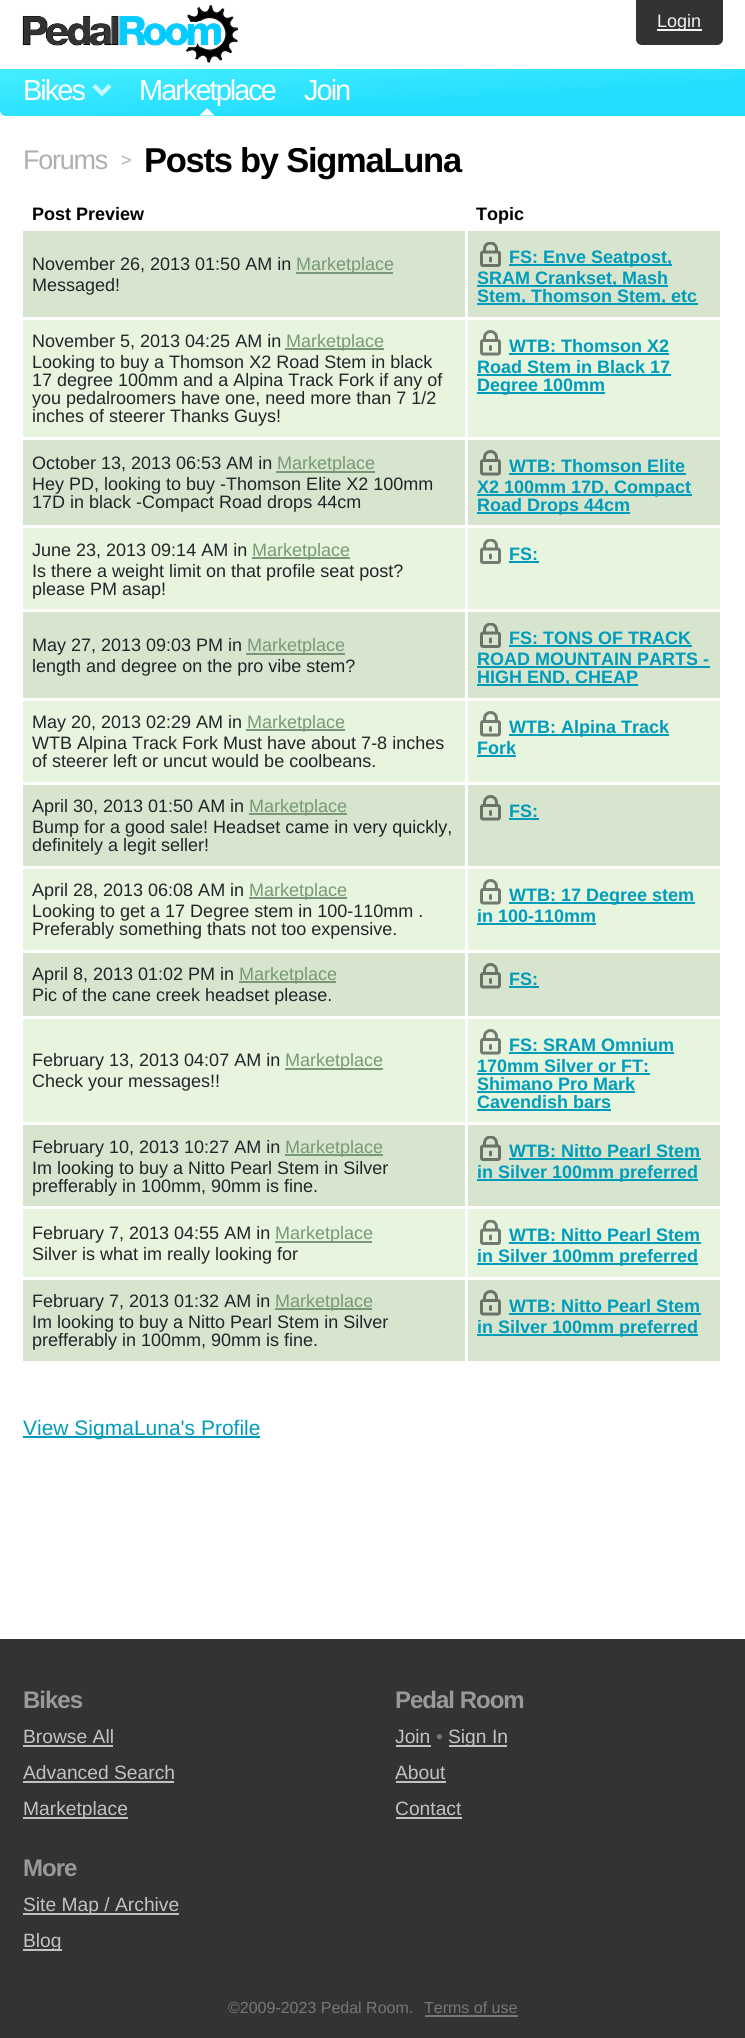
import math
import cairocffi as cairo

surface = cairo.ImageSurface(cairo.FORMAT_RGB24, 745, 2038)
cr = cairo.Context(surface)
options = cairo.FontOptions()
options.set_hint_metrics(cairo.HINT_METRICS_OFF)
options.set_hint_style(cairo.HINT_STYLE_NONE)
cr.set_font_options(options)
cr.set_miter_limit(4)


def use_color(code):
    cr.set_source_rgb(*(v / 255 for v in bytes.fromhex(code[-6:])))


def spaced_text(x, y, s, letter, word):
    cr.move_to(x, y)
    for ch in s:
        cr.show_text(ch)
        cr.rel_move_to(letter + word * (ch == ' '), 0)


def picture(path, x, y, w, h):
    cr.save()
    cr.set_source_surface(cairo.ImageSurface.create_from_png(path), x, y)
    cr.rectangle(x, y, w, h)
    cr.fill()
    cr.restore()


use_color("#333333")
cr.paint()
use_color("#ffffff")
cr.rectangle(0, 0, 745, 1639)
cr.fill()
picture("img1.png", 22, 5, 217, 58)
use_color("#333333")
cr.new_path()
cr.move_to(636, 0)
cr.line_to(723, 0)
cr.line_to(723, 39)
cr.curve_to(723, 42.5, 720.5, 45, 717, 45)
cr.line_to(642, 45)
cr.curve_to(638.5, 45, 636, 42.5, 636, 39)
cr.close_path()
cr.fill()
use_color("#f2f2f2")
cr.rectangle(657, 29, 45, 2)
cr.fill()
cr.select_font_face("Liberation Sans")
cr.set_font_size(18)
cr.move_to(657, 27)
cr.show_text("Login")
gradient = cairo.LinearGradient(370, 46, 376, 139)
gradient.add_color_stop_rgba(0, 0.267, 0.933, 1, 1)
gradient.add_color_stop_rgba(0.7, 0.133, 0.867, 1, 1)
cr.set_source(gradient)
cr.new_path()
cr.move_to(0, 69)
cr.line_to(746, 69)
cr.line_to(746, 116)
cr.line_to(6, 116)
cr.curve_to(2.5, 116, 0, 113.5, 0, 110)
cr.close_path()
cr.fill()
cr.set_font_size(29)
use_color("#ffffff")
spaced_text(23, 100, "Bikes", -2, 0)
cr.set_source_rgba(1, 1, 1, 0.7)
cr.new_path()
cr.move_to(111.5, 87)
cr.line_to(102, 96.5)
cr.line_to(102, 90.5)
cr.line_to(108.5, 84)
cr.close_path()
cr.move_to(102, 96.5)
cr.line_to(92.5, 87)
cr.line_to(95.5, 84)
cr.line_to(102, 90.5)
cr.close_path()
cr.fill()
use_color("#ffffff")
spaced_text(139, 100, "Marketplace", -2, 0)
cr.new_path()
cr.move_to(214.5, 115.5)
cr.line_to(199.5, 115.5)
cr.line_to(207, 108)
cr.close_path()
cr.fill()
spaced_text(304, 100, "Join", -2, 0)
cr.set_font_size(27)
use_color("#afafaf")
spaced_text(23, 169, "Forums", -1.25, 0)
cr.set_font_size(18)
spaced_text(121, 166, ">", -1.25, 0)
cr.select_font_face("Liberation Sans", cairo.FONT_SLANT_NORMAL, cairo.FONT_WEIGHT_BOLD)
cr.set_font_size(34.5)
use_color("#000000")
spaced_text(144, 172, "Posts by SigmaLuna", -1.25, 0)
cr.set_font_size(18)
cr.move_to(32, 220)
cr.show_text("Post Preview")
cr.move_to(476, 220)
cr.show_text("Topic")
use_color("#d7e5ce")
cr.rectangle(23, 231, 442, 86)
cr.fill()
cr.select_font_face("Liberation Sans")
use_color("#212529")
cr.move_to(32, 270)
cr.show_text("November 26, 2013 01:50 AM in")
use_color("#779977")
cr.rectangle(296, 272, 97, 2)
cr.fill()
cr.move_to(296, 270)
cr.show_text("Marketplace")
use_color("#212529")
cr.move_to(32, 291)
cr.show_text("Messaged!")
use_color("#d7e5ce")
cr.rectangle(468, 231, 252, 86)
cr.fill()
picture("img2.png", 480, 242, 21, 25)
use_color("#009cba")
cr.rectangle(509, 264, 163, 2)
cr.fill()
cr.select_font_face("Liberation Sans", cairo.FONT_SLANT_NORMAL, cairo.FONT_WEIGHT_BOLD)
cr.move_to(509, 263)
cr.show_text("FS: Enve Seatpost,")
cr.rectangle(477, 285, 191, 2)
cr.fill()
cr.move_to(477, 284)
cr.show_text("SRAM Crankset, Mash")
cr.rectangle(477, 303, 221, 2)
cr.fill()
cr.move_to(477, 302)
cr.show_text("Stem, Thomson Stem, etc")
use_color("#e7f5de")
cr.rectangle(23, 320, 442, 117)
cr.fill()
cr.select_font_face("Liberation Sans")
use_color("#212529")
cr.move_to(32, 347)
cr.show_text("November 5, 2013 04:25 AM in")
use_color("#779977")
cr.rectangle(285, 348, 99, 2)
cr.fill()
cr.move_to(286, 347)
cr.show_text("Marketplace")
use_color("#212529")
cr.move_to(32, 368)
cr.show_text("Looking to buy a Thomson X2 Road Stem in black")
cr.move_to(32, 386)
cr.show_text("17 degree 100mm and a Alpina Track Fork if any of")
cr.move_to(32, 404)
cr.show_text("you pedalroomers have one, need more than 7 1/2")
cr.move_to(32, 422)
cr.show_text("inches of steerer Thanks Guys!")
use_color("#e7f5de")
cr.rectangle(468, 320, 252, 117)
cr.fill()
picture("img3.png", 480, 330, 21, 26)
cr.select_font_face("Liberation Sans", cairo.FONT_SLANT_NORMAL, cairo.FONT_WEIGHT_BOLD)
use_color("#009cba")
cr.move_to(509, 352)
cr.show_text("WTB: Thomson X2")
cr.rectangle(509, 353, 160, 2)
cr.fill()
cr.move_to(477, 373)
cr.show_text("Road Stem in Black 17")
cr.rectangle(477, 374, 194, 2)
cr.fill()
cr.rectangle(477, 392, 128, 2)
cr.fill()
cr.move_to(477, 391)
cr.show_text("Degree 100mm")
use_color("#d7e5ce")
cr.rectangle(23, 440, 442, 85)
cr.fill()
cr.select_font_face("Liberation Sans")
use_color("#212529")
cr.move_to(32, 469)
cr.show_text("October 13, 2013 06:53 AM in")
use_color("#779977")
cr.rectangle(276, 471, 99, 2)
cr.fill()
cr.move_to(277, 469)
cr.show_text("Marketplace")
use_color("#212529")
cr.move_to(32, 490)
cr.show_text("Hey PD, looking to buy -Thomson Elite X2 100mm")
cr.move_to(32, 508)
cr.show_text("17D in black -Compact Road drops 44cm")
use_color("#d7e5ce")
cr.rectangle(468, 440, 252, 85)
cr.fill()
picture("img4.png", 480, 450, 21, 26)
cr.select_font_face("Liberation Sans", cairo.FONT_SLANT_NORMAL, cairo.FONT_WEIGHT_BOLD)
use_color("#009cba")
cr.move_to(509, 472)
cr.show_text("WTB: Thomson Elite")
cr.rectangle(509, 473, 177, 2)
cr.fill()
cr.rectangle(477, 494, 215, 2)
cr.fill()
cr.move_to(477, 493)
cr.show_text("X2 100mm 17D, Compact")
cr.rectangle(477, 512, 153, 2)
cr.fill()
cr.move_to(477, 511)
cr.show_text("Road Drops 44cm")
use_color("#e7f5de")
cr.rectangle(23, 528, 442, 81)
cr.fill()
cr.select_font_face("Liberation Sans")
use_color("#212529")
cr.move_to(32, 556)
cr.show_text("June 23, 2013 09:14 AM in")
use_color("#779977")
cr.rectangle(252, 557, 98, 2)
cr.fill()
cr.move_to(252, 556)
cr.show_text("Marketplace")
use_color("#212529")
cr.move_to(32, 577)
cr.show_text("Is there a weight limit on that profile seat post?")
cr.move_to(32, 595)
cr.show_text("please PM asap!")
use_color("#e7f5de")
cr.rectangle(468, 528, 252, 81)
cr.fill()
picture("img5.png", 480, 539, 21, 25)
cr.select_font_face("Liberation Sans", cairo.FONT_SLANT_NORMAL, cairo.FONT_WEIGHT_BOLD)
use_color("#009cba")
cr.move_to(509, 560)
cr.show_text("FS:")
cr.rectangle(509, 561, 30, 2)
cr.fill()
use_color("#d7e5ce")
cr.rectangle(23, 612, 442, 86)
cr.fill()
cr.select_font_face("Liberation Sans")
use_color("#212529")
cr.move_to(32, 651)
cr.show_text("May 27, 2013 09:03 PM in")
use_color("#779977")
cr.rectangle(246, 653, 99, 2)
cr.fill()
cr.move_to(247, 651)
cr.show_text("Marketplace")
use_color("#212529")
cr.move_to(32, 672)
cr.show_text("length and degree on the pro vibe stem?")
use_color("#d7e5ce")
cr.rectangle(468, 612, 252, 86)
cr.fill()
picture("img2.png", 480, 623, 21, 25)
cr.select_font_face("Liberation Sans", cairo.FONT_SLANT_NORMAL, cairo.FONT_WEIGHT_BOLD)
use_color("#009cba")
cr.move_to(509, 644)
cr.show_text("FS: TONS OF TRACK")
cr.rectangle(509, 645, 183, 2)
cr.fill()
cr.move_to(477, 665)
cr.show_text("ROAD MOUNTAIN PARTS -")
cr.rectangle(477, 666, 233, 2)
cr.fill()
cr.rectangle(477, 684, 161, 2)
cr.fill()
cr.move_to(477, 683)
cr.show_text("HIGH END, CHEAP")
use_color("#e7f5de")
cr.rectangle(23, 701, 442, 81)
cr.fill()
cr.select_font_face("Liberation Sans")
use_color("#212529")
cr.move_to(32, 728)
cr.show_text("May 20, 2013 02:29 AM in")
use_color("#779977")
cr.rectangle(246, 729, 99, 2)
cr.fill()
cr.move_to(247, 728)
cr.show_text("Marketplace")
use_color("#212529")
cr.move_to(32, 749)
cr.show_text("WTB Alpina Track Fork Must have about 7-8 inches")
cr.move_to(32, 767)
cr.show_text("of steerer left or uncut would be coolbeans.")
use_color("#e7f5de")
cr.rectangle(468, 701, 252, 81)
cr.fill()
picture("img3.png", 480, 711, 21, 26)
use_color("#009cba")
cr.rectangle(509, 734, 160, 2)
cr.fill()
cr.select_font_face("Liberation Sans", cairo.FONT_SLANT_NORMAL, cairo.FONT_WEIGHT_BOLD)
cr.move_to(509, 733)
cr.show_text("WTB: Alpina Track")
cr.move_to(477, 754)
cr.show_text("Fork")
cr.rectangle(477, 755, 39, 2)
cr.fill()
use_color("#d7e5ce")
cr.rectangle(23, 785, 442, 81)
cr.fill()
cr.select_font_face("Liberation Sans")
use_color("#212529")
cr.move_to(32, 812)
cr.show_text("April 30, 2013 01:50 AM in")
use_color("#779977")
cr.rectangle(249, 813, 98, 2)
cr.fill()
cr.move_to(249, 812)
cr.show_text("Marketplace")
use_color("#212529")
cr.move_to(32, 833)
cr.show_text("Bump for a good sale! Headset came in very quickly,")
cr.move_to(32, 851)
cr.show_text("definitely a legit seller!")
use_color("#d7e5ce")
cr.rectangle(468, 785, 252, 81)
cr.fill()
picture("img4.png", 480, 795, 21, 26)
cr.select_font_face("Liberation Sans", cairo.FONT_SLANT_NORMAL, cairo.FONT_WEIGHT_BOLD)
use_color("#009cba")
cr.move_to(509, 817)
cr.show_text("FS:")
cr.rectangle(509, 818, 30, 2)
cr.fill()
use_color("#e7f5de")
cr.rectangle(23, 869, 442, 81)
cr.fill()
cr.select_font_face("Liberation Sans")
use_color("#212529")
cr.move_to(32, 896)
cr.show_text("April 28, 2013 06:08 AM in")
use_color("#779977")
cr.rectangle(249, 897, 98, 2)
cr.fill()
cr.move_to(249, 896)
cr.show_text("Marketplace")
use_color("#212529")
cr.move_to(32, 917)
cr.show_text("Looking to get a 17 Degree stem in 100-110mm .")
cr.move_to(32, 935)
cr.show_text("Preferably something thats not too expensive.")
use_color("#e7f5de")
cr.rectangle(468, 869, 252, 81)
cr.fill()
picture("img3.png", 480, 879, 21, 26)
use_color("#009cba")
cr.rectangle(509, 902, 186, 2)
cr.fill()
cr.select_font_face("Liberation Sans", cairo.FONT_SLANT_NORMAL, cairo.FONT_WEIGHT_BOLD)
cr.move_to(509, 901)
cr.show_text("WTB: 17 Degree stem")
cr.move_to(477, 922)
cr.show_text("in 100-110mm")
cr.rectangle(477, 923, 119, 2)
cr.fill()
use_color("#d7e5ce")
cr.rectangle(23, 953, 442, 63)
cr.fill()
cr.select_font_face("Liberation Sans")
use_color("#212529")
cr.move_to(32, 980)
cr.show_text("April 8, 2013 01:02 PM in")
use_color("#779977")
cr.rectangle(239, 981, 97, 2)
cr.fill()
cr.move_to(239, 980)
cr.show_text("Marketplace")
use_color("#212529")
cr.move_to(32, 1001)
cr.show_text("Pic of the cane creek headset please.")
use_color("#d7e5ce")
cr.rectangle(468, 953, 252, 63)
cr.fill()
picture("img4.png", 480, 963, 21, 26)
cr.select_font_face("Liberation Sans", cairo.FONT_SLANT_NORMAL, cairo.FONT_WEIGHT_BOLD)
use_color("#009cba")
cr.move_to(509, 985)
cr.show_text("FS:")
cr.rectangle(509, 986, 30, 2)
cr.fill()
use_color("#e7f5de")
cr.rectangle(23, 1019, 442, 103)
cr.fill()
cr.select_font_face("Liberation Sans")
use_color("#212529")
cr.move_to(32, 1066)
cr.show_text("February 13, 2013 04:07 AM in")
use_color("#779977")
cr.rectangle(285, 1068, 98, 2)
cr.fill()
cr.move_to(285, 1066)
cr.show_text("Marketplace")
use_color("#212529")
cr.move_to(32, 1087)
cr.show_text("Check your messages!!")
use_color("#e7f5de")
cr.rectangle(468, 1019, 252, 103)
cr.fill()
picture("img3.png", 480, 1029, 21, 26)
cr.select_font_face("Liberation Sans", cairo.FONT_SLANT_NORMAL, cairo.FONT_WEIGHT_BOLD)
use_color("#009cba")
cr.move_to(509, 1051)
cr.show_text("FS: SRAM Omnium")
cr.rectangle(509, 1052, 165, 2)
cr.fill()
cr.move_to(477, 1072)
cr.show_text("170mm Silver or FT:")
cr.rectangle(477, 1073, 173, 2)
cr.fill()
cr.move_to(477, 1090)
cr.show_text("Shimano Pro Mark")
cr.rectangle(477, 1091, 158, 2)
cr.fill()
cr.move_to(477, 1108)
cr.show_text("Cavendish bars")
cr.rectangle(477, 1109, 134, 2)
cr.fill()
use_color("#d7e5ce")
cr.rectangle(23, 1125, 442, 81)
cr.fill()
cr.select_font_face("Liberation Sans")
use_color("#212529")
cr.move_to(32, 1153)
cr.show_text("February 10, 2013 10:27 AM in")
use_color("#779977")
cr.rectangle(285, 1154, 98, 2)
cr.fill()
cr.move_to(285, 1153)
cr.show_text("Marketplace")
use_color("#212529")
cr.move_to(32, 1174)
cr.show_text("Im looking to buy a Nitto Pearl Stem in Silver")
cr.move_to(32, 1192)
cr.show_text("prefferably in 100mm, 90mm is fine.")
use_color("#d7e5ce")
cr.rectangle(468, 1125, 252, 81)
cr.fill()
picture("img2.png", 480, 1136, 21, 25)
cr.select_font_face("Liberation Sans", cairo.FONT_SLANT_NORMAL, cairo.FONT_WEIGHT_BOLD)
use_color("#009cba")
cr.move_to(509, 1157)
cr.show_text("WTB: Nitto Pearl Stem")
cr.rectangle(509, 1158, 192, 2)
cr.fill()
cr.rectangle(477, 1179, 221, 2)
cr.fill()
cr.move_to(477, 1178)
cr.show_text("in Silver 100mm preferred")
use_color("#e7f5de")
cr.rectangle(23, 1209, 442, 68)
cr.fill()
cr.select_font_face("Liberation Sans")
use_color("#212529")
cr.move_to(32, 1239)
cr.show_text("February 7, 2013 04:55 AM in")
use_color("#779977")
cr.rectangle(275, 1241, 97, 2)
cr.fill()
cr.move_to(275, 1239)
cr.show_text("Marketplace")
use_color("#212529")
cr.move_to(32, 1260)
cr.show_text("Silver is what im really looking for")
use_color("#e7f5de")
cr.rectangle(468, 1209, 252, 68)
cr.fill()
picture("img5.png", 480, 1220, 21, 25)
cr.select_font_face("Liberation Sans", cairo.FONT_SLANT_NORMAL, cairo.FONT_WEIGHT_BOLD)
use_color("#009cba")
cr.move_to(509, 1241)
cr.show_text("WTB: Nitto Pearl Stem")
cr.rectangle(509, 1242, 192, 2)
cr.fill()
cr.rectangle(477, 1263, 221, 2)
cr.fill()
cr.move_to(477, 1262)
cr.show_text("in Silver 100mm preferred")
use_color("#d7e5ce")
cr.rectangle(23, 1280, 442, 81)
cr.fill()
cr.select_font_face("Liberation Sans")
use_color("#212529")
cr.move_to(32, 1307)
cr.show_text("February 7, 2013 01:32 AM in")
use_color("#779977")
cr.rectangle(275, 1308, 97, 2)
cr.fill()
cr.move_to(275, 1307)
cr.show_text("Marketplace")
use_color("#212529")
cr.move_to(32, 1328)
cr.show_text("Im looking to buy a Nitto Pearl Stem in Silver")
cr.move_to(32, 1346)
cr.show_text("prefferably in 100mm, 90mm is fine.")
use_color("#d7e5ce")
cr.rectangle(468, 1280, 252, 81)
cr.fill()
picture("img4.png", 480, 1290, 21, 26)
cr.select_font_face("Liberation Sans", cairo.FONT_SLANT_NORMAL, cairo.FONT_WEIGHT_BOLD)
use_color("#009cba")
cr.move_to(509, 1312)
cr.show_text("WTB: Nitto Pearl Stem")
cr.rectangle(509, 1313, 192, 2)
cr.fill()
cr.rectangle(477, 1334, 221, 2)
cr.fill()
cr.move_to(477, 1333)
cr.show_text("in Silver 100mm preferred")
cr.rectangle(23, 1436, 237, 2)
cr.fill()
cr.select_font_face("Liberation Sans")
cr.set_font_size(21)
cr.move_to(23, 1435)
cr.show_text("View SigmaLuna's Profile")
cr.select_font_face("Liberation Sans", cairo.FONT_SLANT_NORMAL, cairo.FONT_WEIGHT_BOLD)
cr.set_font_size(24)
use_color("#999999")
spaced_text(23, 1708, "Bikes", -1, 0)
cr.select_font_face("Liberation Sans")
cr.set_font_size(19.25)
use_color("#c2c2c2")
cr.move_to(23, 1743)
cr.show_text("Browse All")
cr.rectangle(23, 1745, 90, 2)
cr.fill()
cr.move_to(23, 1779)
cr.show_text("Advanced Search")
cr.rectangle(23, 1781, 151, 2)
cr.fill()
cr.rectangle(23, 1817, 105, 2)
cr.fill()
cr.move_to(23, 1815)
cr.show_text("Marketplace")
cr.select_font_face("Liberation Sans", cairo.FONT_SLANT_NORMAL, cairo.FONT_WEIGHT_BOLD)
cr.set_font_size(24)
use_color("#999999")
spaced_text(395, 1708, "Pedal Room", -1, 0)
cr.select_font_face("Liberation Sans")
cr.set_font_size(19.25)
use_color("#c2c2c2")
cr.move_to(395, 1743)
cr.show_text("Join")
cr.rectangle(396, 1745, 35, 2)
cr.fill()
use_color("#777777")
cr.move_to(436, 1743)
cr.show_text("•")
use_color("#c2c2c2")
cr.rectangle(449, 1745, 58, 2)
cr.fill()
cr.move_to(448, 1743)
cr.show_text("Sign In")
cr.move_to(395, 1779)
cr.show_text("About")
cr.rectangle(396, 1781, 50, 2)
cr.fill()
cr.move_to(395, 1815)
cr.show_text("Contact")
cr.rectangle(396, 1817, 66, 2)
cr.fill()
cr.select_font_face("Liberation Sans", cairo.FONT_SLANT_NORMAL, cairo.FONT_WEIGHT_BOLD)
cr.set_font_size(24)
use_color("#999999")
spaced_text(23, 1876, "More", -1, 0)
use_color("#c2c2c2")
cr.rectangle(23, 1913, 156, 2)
cr.fill()
cr.select_font_face("Liberation Sans")
cr.set_font_size(19.25)
cr.move_to(23, 1911)
cr.show_text("Site Map / Archive")
cr.rectangle(23, 1949, 39, 2)
cr.fill()
cr.move_to(23, 1947)
cr.show_text("Blog")
cr.set_font_size(16)
use_color("#777777")
cr.move_to(228, 2013)
cr.show_text("©2009-2023 Pedal Room.")
cr.move_to(424, 2013)
cr.show_text("Terms of use")
cr.rectangle(425, 2015, 93, 2)
cr.fill()
surface.write_to_png("result.png")
